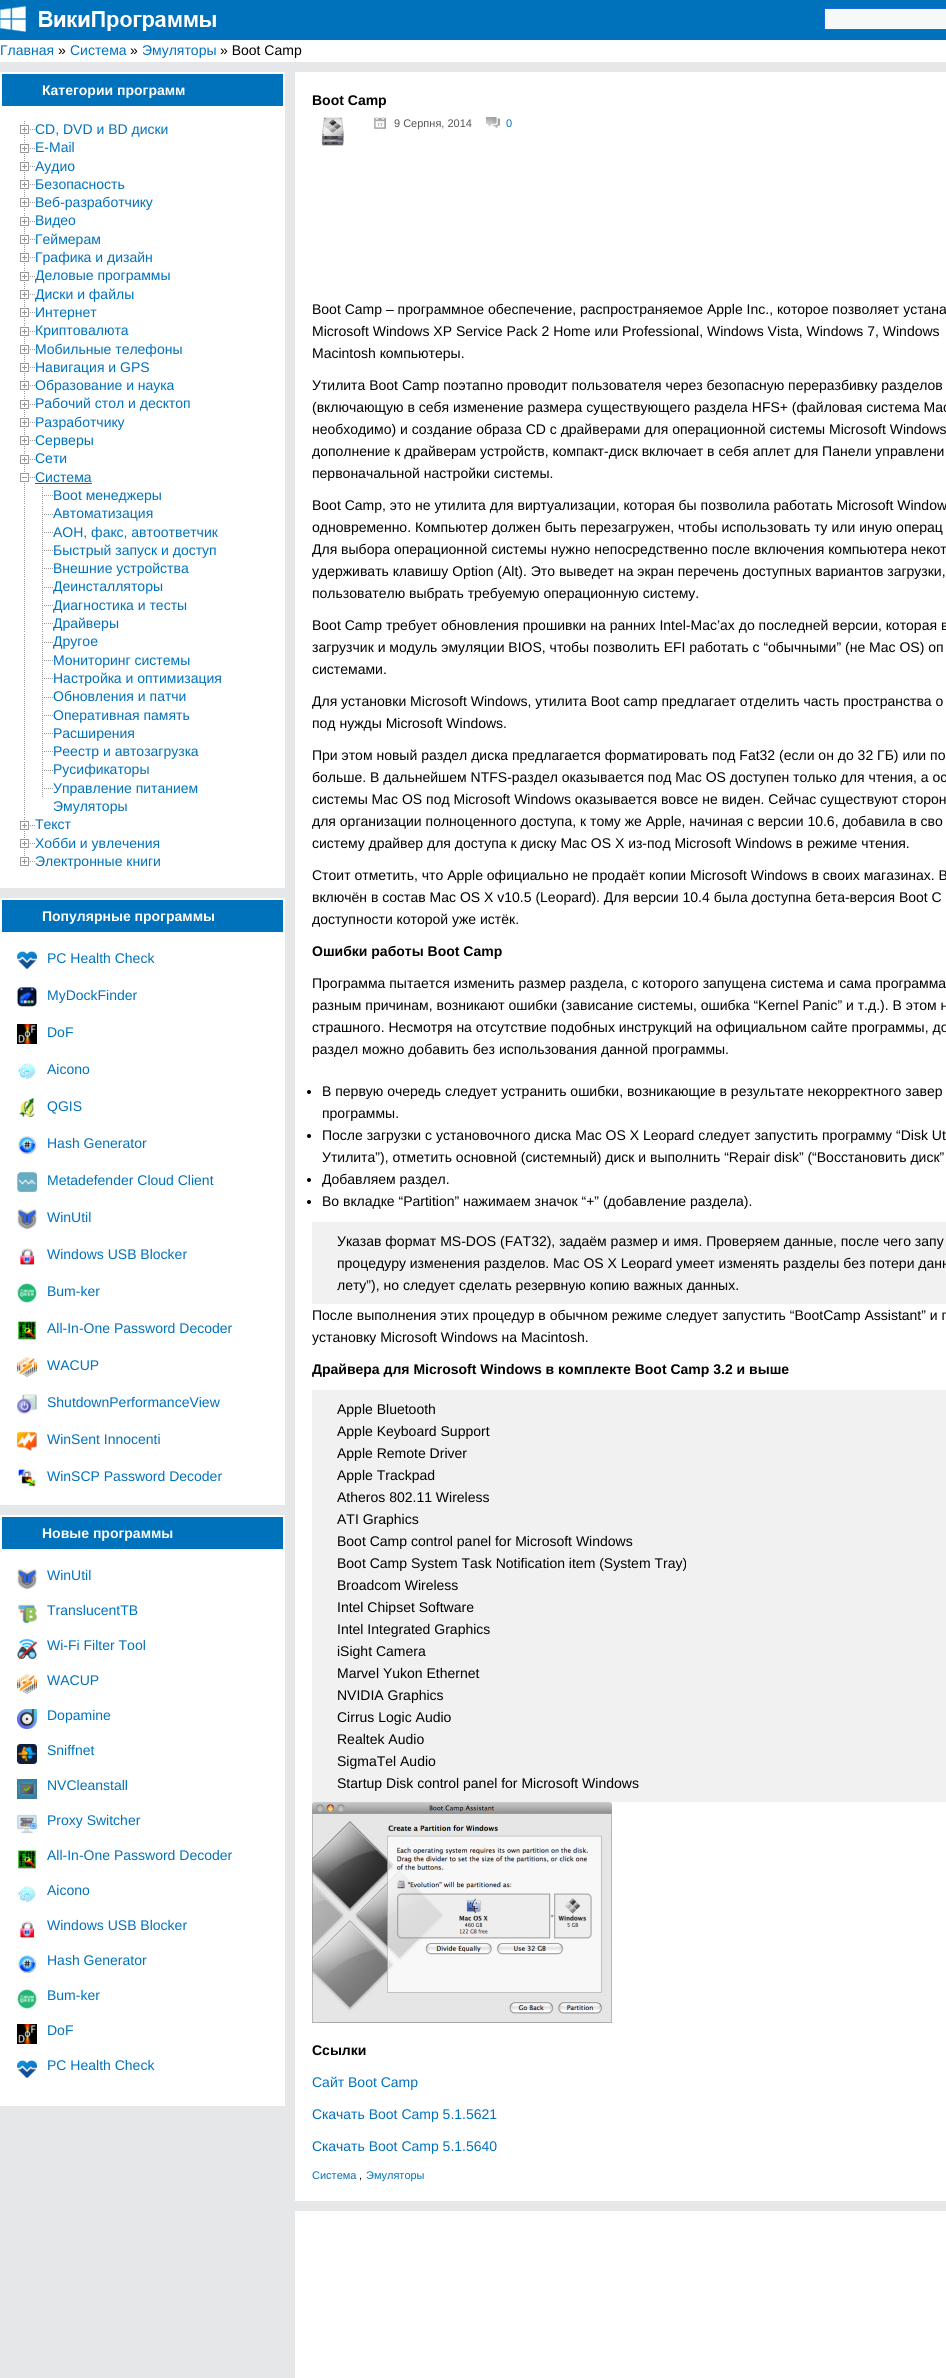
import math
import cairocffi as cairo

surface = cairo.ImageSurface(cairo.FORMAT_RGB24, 946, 2378)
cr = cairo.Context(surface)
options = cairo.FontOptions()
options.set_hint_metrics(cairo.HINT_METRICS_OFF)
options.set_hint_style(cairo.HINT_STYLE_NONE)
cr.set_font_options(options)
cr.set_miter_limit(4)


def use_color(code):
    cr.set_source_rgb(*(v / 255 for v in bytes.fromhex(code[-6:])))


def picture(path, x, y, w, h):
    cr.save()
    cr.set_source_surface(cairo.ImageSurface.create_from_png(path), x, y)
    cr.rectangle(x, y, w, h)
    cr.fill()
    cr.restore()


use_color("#e6e7e9")
cr.paint()
use_color("#0072bc")
cr.rectangle(0, 0, 946, 40)
cr.fill()
picture("img1.png", 0, 6, 216, 26)
use_color("#f7f9f9")
cr.rectangle(824.5, 8.5, 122, 21)
cr.fill_preserve()
use_color("#1a6cdb")
cr.set_line_width(1)
cr.stroke()
use_color("#ffffff")
cr.rectangle(0, 40, 946, 22)
cr.fill()
cr.select_font_face("Liberation Sans")
cr.set_font_size(14)
use_color("#0072bc")
cr.move_to(0, 55)
cr.show_text("Главная")
use_color("#000000")
cr.move_to(58, 55)
cr.show_text("»")
use_color("#0072bc")
cr.move_to(70, 55)
cr.show_text("Система")
use_color("#000000")
cr.move_to(130, 55)
cr.show_text("»")
use_color("#0072bc")
cr.move_to(142, 55)
cr.show_text("Эмуляторы")
use_color("#000000")
cr.move_to(220, 55)
cr.show_text("» Boot Camp")
use_color("#ffffff")
cr.rectangle(0, 72, 285, 816)
cr.fill()
use_color("#0072bc")
cr.rectangle(2, 74, 281, 32)
cr.fill()
cr.select_font_face("Liberation Sans", cairo.FONT_SLANT_NORMAL, cairo.FONT_WEIGHT_BOLD)
use_color("#ffffff")
cr.move_to(42, 95)
cr.show_text("Категории программ")
picture("img2.png", 20, 121, 15, 17)
cr.select_font_face("Liberation Sans")
use_color("#0072bc")
cr.move_to(35, 134)
cr.show_text("CD, DVD и BD диски")
picture("img2.png", 20, 140, 15, 17)
cr.move_to(35, 152)
cr.show_text("E-Mail")
picture("img2.png", 20, 158, 15, 17)
cr.move_to(35, 171)
cr.show_text("Аудио")
picture("img2.png", 20, 176, 15, 17)
cr.move_to(35, 189)
cr.show_text("Безопасность")
picture("img2.png", 20, 194, 15, 17)
cr.move_to(35, 207)
cr.show_text("Веб-разработчику")
picture("img2.png", 20, 213, 15, 17)
cr.move_to(35, 225)
cr.show_text("Видео")
picture("img2.png", 20, 231, 15, 17)
cr.move_to(35, 244)
cr.show_text("Геймерам")
picture("img2.png", 20, 249, 15, 17)
cr.move_to(35, 262)
cr.show_text("Графика и дизайн")
picture("img2.png", 20, 268, 15, 17)
cr.move_to(35, 280)
cr.show_text("Деловые программы")
picture("img2.png", 20, 286, 15, 17)
cr.move_to(35, 299)
cr.show_text("Диски и файлы")
picture("img2.png", 20, 304, 15, 17)
cr.move_to(35, 317)
cr.show_text("Интернет")
picture("img2.png", 20, 323, 15, 17)
cr.move_to(35, 335)
cr.show_text("Криптовалюта")
picture("img2.png", 20, 341, 15, 17)
cr.move_to(35, 354)
cr.show_text("Мобильные телефоны")
picture("img2.png", 20, 359, 15, 17)
cr.move_to(35, 372)
cr.show_text("Навигация и GPS")
picture("img2.png", 20, 377, 15, 17)
cr.move_to(35, 390)
cr.show_text("Образование и наука")
picture("img2.png", 20, 396, 15, 17)
cr.move_to(35, 408)
cr.show_text("Рабочий стол и десктоп")
picture("img2.png", 20, 414, 15, 17)
cr.move_to(35, 427)
cr.show_text("Разработчику")
picture("img2.png", 20, 432, 15, 17)
cr.move_to(35, 445)
cr.show_text("Серверы")
picture("img2.png", 20, 451, 15, 17)
cr.move_to(35, 463)
cr.show_text("Сети")
picture("img3.png", 20, 469, 15, 17)
cr.move_to(35, 482)
cr.show_text("Система")
cr.rectangle(35, 483, 57, 1)
cr.fill()
picture("img4.png", 24, 487, 1, 17)
picture("img5.png", 42, 487, 11, 17)
cr.move_to(53, 500)
cr.show_text("Boot менеджеры")
picture("img4.png", 24, 506, 1, 17)
picture("img5.png", 42, 506, 11, 17)
cr.move_to(53, 518)
cr.show_text("Автоматизация")
picture("img4.png", 24, 524, 1, 17)
picture("img5.png", 42, 524, 11, 17)
cr.move_to(53, 537)
cr.show_text("АОН, факс, автоответчик")
picture("img4.png", 24, 542, 1, 17)
picture("img5.png", 42, 542, 11, 17)
cr.move_to(53, 555)
cr.show_text("Быстрый запуск и доступ")
picture("img4.png", 24, 560, 1, 17)
picture("img5.png", 42, 560, 11, 17)
cr.move_to(53, 573)
cr.show_text("Внешние устройства")
picture("img4.png", 24, 579, 1, 17)
picture("img5.png", 42, 579, 11, 17)
cr.move_to(53, 591)
cr.show_text("Деинсталляторы")
picture("img4.png", 24, 597, 1, 17)
picture("img5.png", 42, 597, 11, 17)
cr.move_to(53, 610)
cr.show_text("Диагностика и тесты")
picture("img4.png", 24, 615, 1, 17)
picture("img5.png", 42, 615, 11, 17)
cr.move_to(53, 628)
cr.show_text("Драйверы")
picture("img4.png", 24, 634, 1, 17)
picture("img5.png", 42, 634, 11, 17)
cr.move_to(53, 646)
cr.show_text("Другое")
picture("img4.png", 24, 652, 1, 17)
picture("img5.png", 42, 652, 11, 17)
cr.move_to(53, 665)
cr.show_text("Мониторинг системы")
picture("img4.png", 24, 670, 1, 17)
picture("img5.png", 42, 670, 11, 17)
cr.move_to(53, 683)
cr.show_text("Настройка и оптимизация")
picture("img4.png", 24, 689, 1, 17)
picture("img5.png", 42, 689, 11, 17)
cr.move_to(53, 701)
cr.show_text("Обновления и патчи")
picture("img4.png", 24, 707, 1, 17)
picture("img5.png", 42, 707, 11, 17)
cr.move_to(53, 720)
cr.show_text("Оперативная память")
picture("img4.png", 24, 725, 1, 17)
picture("img5.png", 42, 725, 11, 17)
cr.move_to(53, 738)
cr.show_text("Расширения")
picture("img4.png", 24, 743, 1, 17)
picture("img5.png", 42, 743, 11, 17)
cr.move_to(53, 756)
cr.show_text("Реестр и автозагрузка")
picture("img4.png", 24, 762, 1, 17)
picture("img5.png", 42, 762, 11, 17)
cr.move_to(53, 774)
cr.show_text("Русификаторы")
picture("img4.png", 24, 780, 1, 17)
picture("img5.png", 42, 780, 11, 17)
cr.move_to(53, 793)
cr.show_text("Управление питанием")
picture("img4.png", 24, 798, 1, 17)
cr.move_to(53, 811)
cr.show_text("Эмуляторы")
picture("img2.png", 20, 817, 15, 17)
cr.move_to(35, 829)
cr.show_text("Текст")
picture("img2.png", 20, 835, 15, 17)
cr.move_to(35, 848)
cr.show_text("Хобби и увлечения")
picture("img6.png", 20, 853, 15, 13)
cr.move_to(35, 866)
cr.show_text("Электронные книги")
use_color("#ffffff")
cr.rectangle(0, 898, 285, 607)
cr.fill()
use_color("#0072bc")
cr.rectangle(2, 900, 281, 32)
cr.fill()
cr.select_font_face("Liberation Sans", cairo.FONT_SLANT_NORMAL, cairo.FONT_WEIGHT_BOLD)
use_color("#ffffff")
cr.move_to(42, 921)
cr.show_text("Популярные программы")
picture("img7.png", 17, 951, 20, 18)
cr.select_font_face("Liberation Sans")
use_color("#0072bc")
cr.move_to(47, 963)
cr.show_text("PC Health Check")
picture("img8.png", 17, 987, 20, 20)
cr.move_to(47, 1000)
cr.show_text("MyDockFinder")
picture("img9.png", 17, 1024, 20, 20)
cr.move_to(47, 1037)
cr.show_text("DoF")
picture("img10.png", 18, 1063, 18, 17)
cr.move_to(47, 1074)
cr.show_text("Aicono")
picture("img11.png", 19, 1098, 16, 20)
cr.move_to(47, 1111)
cr.show_text("QGIS")
picture("img12.png", 18, 1136, 19, 19)
cr.move_to(47, 1148)
cr.show_text("Hash Generator")
picture("img13.png", 17, 1172, 20, 20)
cr.move_to(47, 1185)
cr.show_text("Metadefender Cloud Client")
picture("img14.png", 17, 1209, 20, 20)
cr.move_to(47, 1222)
cr.show_text("WinUtil")
picture("img15.png", 19, 1248, 16, 17)
cr.move_to(47, 1259)
cr.show_text("Windows USB Blocker")
picture("img16.png", 17, 1283, 20, 20)
cr.move_to(47, 1296)
cr.show_text("Bum-ker")
picture("img17.png", 18, 1321, 18, 19)
cr.move_to(47, 1333)
cr.show_text("All-In-One Password Decoder")
picture("img18.png", 17, 1357, 20, 20)
cr.move_to(47, 1370)
cr.show_text("WACUP")
picture("img19.png", 17, 1394, 20, 20)
cr.move_to(47, 1407)
cr.show_text("ShutdownPerformanceView")
picture("img20.png", 17, 1431, 20, 20)
cr.move_to(47, 1444)
cr.show_text("WinSent Innocenti")
picture("img21.png", 18, 1469, 18, 18)
cr.move_to(47, 1481)
cr.show_text("WinSCP Password Decoder")
use_color("#ffffff")
cr.rectangle(0, 1515, 285, 591)
cr.fill()
use_color("#0072bc")
cr.rectangle(2, 1517, 281, 32)
cr.fill()
cr.select_font_face("Liberation Sans", cairo.FONT_SLANT_NORMAL, cairo.FONT_WEIGHT_BOLD)
use_color("#ffffff")
cr.move_to(42, 1538)
cr.show_text("Новые программы")
picture("img14.png", 17, 1569, 20, 20)
cr.select_font_face("Liberation Sans")
use_color("#0072bc")
cr.move_to(47, 1580)
cr.show_text("WinUtil")
picture("img22.png", 18, 1604, 19, 20)
cr.move_to(47, 1615)
cr.show_text("TranslucentTB")
picture("img23.png", 17, 1639, 20, 20)
cr.move_to(47, 1650)
cr.show_text("Wi-Fi Filter Tool")
picture("img18.png", 17, 1674, 20, 20)
cr.move_to(47, 1685)
cr.show_text("WACUP")
picture("img24.png", 17, 1709, 20, 20)
cr.move_to(47, 1720)
cr.show_text("Dopamine")
picture("img25.png", 17, 1744, 20, 20)
cr.move_to(47, 1755)
cr.show_text("Sniffnet")
picture("img26.png", 17, 1779, 20, 20)
cr.move_to(47, 1790)
cr.show_text("NVCleanstall")
picture("img27.png", 17, 1814, 20, 20)
cr.move_to(47, 1825)
cr.show_text("Proxy Switcher")
picture("img17.png", 18, 1850, 18, 19)
cr.move_to(47, 1860)
cr.show_text("All-In-One Password Decoder")
picture("img10.png", 18, 1886, 18, 17)
cr.move_to(47, 1895)
cr.show_text("Aicono")
picture("img15.png", 19, 1921, 16, 17)
cr.move_to(47, 1930)
cr.show_text("Windows USB Blocker")
picture("img12.png", 18, 1955, 19, 19)
cr.move_to(47, 1965)
cr.show_text("Hash Generator")
picture("img16.png", 17, 1989, 20, 20)
cr.move_to(47, 2000)
cr.show_text("Bum-ker")
picture("img9.png", 17, 2024, 20, 20)
cr.move_to(47, 2035)
cr.show_text("DoF")
picture("img7.png", 17, 2060, 20, 18)
cr.move_to(47, 2070)
cr.show_text("PC Health Check")
use_color("#ffffff")
cr.rectangle(295, 72, 651, 2129)
cr.fill()
cr.select_font_face("Liberation Sans", cairo.FONT_SLANT_NORMAL, cairo.FONT_WEIGHT_BOLD)
use_color("#000000")
cr.move_to(312, 105)
cr.show_text("Boot Camp")
picture("img28.png", 321, 117, 23, 29)
picture("img29.png", 374, 117, 12, 12)
cr.select_font_face("Liberation Sans")
cr.set_font_size(11)
use_color("#555555")
cr.move_to(394, 127)
cr.show_text("9 Серпня, 2014")
picture("img30.png", 486, 117, 14, 11)
use_color("#0072bc")
cr.move_to(506, 127)
cr.show_text("0")
cr.set_font_size(14)
use_color("#000000")
cr.move_to(312, 314)
cr.show_text("Boot Camp – программное обеспечение, распространяемое Apple Inc., которое позволяет устана")
cr.move_to(312, 336)
cr.show_text("Microsoft Windows XP Service Pack 2 Home или Professional, Windows Vista, Windows 7, Windows")
cr.move_to(312, 358)
cr.show_text("Macintosh компьютеры.")
cr.move_to(312, 390)
cr.show_text("Утилита Boot Camp поэтапно проводит пользователя через безопасную переразбивку разделов")
cr.move_to(312, 412)
cr.show_text("(включающую в себя изменение размера существующего раздела HFS+ (файловая система Mac")
cr.move_to(312, 434)
cr.show_text("необходимо) и создание образа CD с драйверами для операционной системы Microsoft Windows")
cr.move_to(312, 456)
cr.show_text("дополнение к драйверам устройств, компакт-диск включает в себя аплет для Панели управлени")
cr.move_to(312, 478)
cr.show_text("первоначальной настройки системы.")
cr.move_to(312, 510)
cr.show_text("Boot Camp, это не утилита для виртуализации, которая бы позволила работать Microsoft Window")
cr.move_to(312, 532)
cr.show_text("одновременно. Компьютер должен быть перезагружен, чтобы использовать ту или иную операц")
cr.move_to(312, 554)
cr.show_text("Для выбора операционной системы нужно непосредственно после включения компьютера некот")
cr.move_to(312, 576)
cr.show_text("удерживать клавишу Option (Alt). Это выведет на экран перечень доступных вариантов загрузки,")
cr.move_to(312, 598)
cr.show_text("пользователю выбрать требуемую операционную систему.")
cr.move_to(312, 630)
cr.show_text("Boot Camp требует обновления прошивки на ранних Intel-Mac’ах до последней версии, которая в")
cr.move_to(312, 652)
cr.show_text("загрузчик и модуль эмуляции BIOS, чтобы позволить EFI работать с “обычными” (не Mac OS) оп")
cr.move_to(312, 674)
cr.show_text("системами.")
cr.move_to(312, 706)
cr.show_text("Для установки Microsoft Windows, утилита Boot camp предлагает отделить часть пространства о")
cr.move_to(312, 728)
cr.show_text("под нужды Microsoft Windows.")
cr.move_to(312, 760)
cr.show_text("При этом новый раздел диска предлагается форматировать под Fat32 (если он до 32 ГБ) или по")
cr.move_to(312, 782)
cr.show_text("больше. В дальнейшем NTFS-раздел оказывается под Mac OS доступен только для чтения, а ос")
cr.move_to(312, 804)
cr.show_text("системы Mac OS под Microsoft Windows оказывается вовсе не виден. Сейчас существуют сторон")
cr.move_to(312, 826)
cr.show_text("для организации полноценного доступа, к тому же Apple, начиная с версии 10.6, добавила в сво")
cr.move_to(312, 848)
cr.show_text("систему драйвер для доступа к диску Mac OS X из-под Microsoft Windows в режиме чтения.")
cr.move_to(312, 880)
cr.show_text("Стоит отметить, что Apple официально не продаёт копии Microsoft Windows в своих магазинах. B")
cr.move_to(312, 902)
cr.show_text("включён в состав Mac OS X v10.5 (Leopard). Для версии 10.4 была доступна бета-версия Boot C")
cr.move_to(312, 924)
cr.show_text("доступности которой уже истёк.")
cr.select_font_face("Liberation Sans", cairo.FONT_SLANT_NORMAL, cairo.FONT_WEIGHT_BOLD)
cr.move_to(312, 956)
cr.show_text("Ошибки работы Boot Camp")
cr.select_font_face("Liberation Sans")
cr.move_to(312, 988)
cr.show_text("Программа пытается изменить размер раздела, с которого запущена система и сама программа")
cr.move_to(312, 1010)
cr.show_text("разным причинам, возникают ошибки (зависание системы, ошибка “Kernel Panic” и т.д.). В этом н")
cr.move_to(312, 1032)
cr.show_text("страшного. Несмотря на отсутствие подобных инструкций на официальном сайте программы, до")
cr.move_to(312, 1054)
cr.show_text("раздел можно добавить без использования данной программы.")
cr.new_path()
cr.arc(309, 1092, 2, 0, 2 * math.pi)
cr.fill()
cr.move_to(322, 1096)
cr.show_text("В первую очередь следует устранить ошибки, возникающие в результате некорректного завер")
cr.move_to(322, 1118)
cr.show_text("программы.")
cr.new_path()
cr.arc(309, 1136, 2, 0, 2 * math.pi)
cr.fill()
cr.move_to(322, 1140)
cr.show_text("После загрузки с установочного диска Mac OS X Leopard следует запустить программу “Disk Ut")
cr.move_to(322, 1162)
cr.show_text("Утилита”), отметить основной (системный) диск и выполнить “Repair disk” (“Восстановить диск”")
cr.new_path()
cr.arc(309, 1180, 2, 0, 2 * math.pi)
cr.fill()
cr.move_to(322, 1184)
cr.show_text("Добавляем раздел.")
cr.new_path()
cr.arc(309, 1202, 2, 0, 2 * math.pi)
cr.fill()
cr.move_to(322, 1206)
cr.show_text("Во вкладке “Partition” нажимаем значок “+” (добавление раздела).")
use_color("#f1f1f1")
cr.rectangle(312, 1222, 634, 82)
cr.fill()
use_color("#000000")
cr.move_to(337, 1246)
cr.show_text("Указав формат MS-DOS (FAT32), задаём размер и имя. Проверяем данные, после чего запу")
cr.move_to(337, 1268)
cr.show_text("процедуру изменения разделов. Mac OS X Leopard умеет изменять разделы без потери данн")
cr.move_to(337, 1290)
cr.show_text("лету”), но следует сделать резервную копию важных данных.")
cr.move_to(312, 1320)
cr.show_text("После выполнения этих процедур в обычном режиме следует запустить “BootCamp Assistant” и п")
cr.move_to(312, 1342)
cr.show_text("установку Microsoft Windows на Macintosh.")
cr.select_font_face("Liberation Sans", cairo.FONT_SLANT_NORMAL, cairo.FONT_WEIGHT_BOLD)
cr.move_to(312, 1374)
cr.show_text("Драйвера для Microsoft Windows в комплекте Boot Camp 3.2 и выше")
use_color("#f1f1f1")
cr.rectangle(312, 1390, 634, 412)
cr.fill()
cr.select_font_face("Liberation Sans")
use_color("#000000")
cr.move_to(337, 1414)
cr.show_text("Apple Bluetooth")
cr.move_to(337, 1436)
cr.show_text("Apple Keyboard Support")
cr.move_to(337, 1458)
cr.show_text("Apple Remote Driver")
cr.move_to(337, 1480)
cr.show_text("Apple Trackpad")
cr.move_to(337, 1502)
cr.show_text("Atheros 802.11 Wireless")
cr.move_to(337, 1524)
cr.show_text("ATI Graphics")
cr.move_to(337, 1546)
cr.show_text("Boot Camp control panel for Microsoft Windows")
cr.move_to(337, 1568)
cr.show_text("Boot Camp System Task Notification item (System Tray)")
cr.move_to(337, 1590)
cr.show_text("Broadcom Wireless")
cr.move_to(337, 1612)
cr.show_text("Intel Chipset Software")
cr.move_to(337, 1634)
cr.show_text("Intel Integrated Graphics")
cr.move_to(337, 1656)
cr.show_text("iSight Camera")
cr.move_to(337, 1678)
cr.show_text("Marvel Yukon Ethernet")
cr.move_to(337, 1700)
cr.show_text("NVIDIA Graphics")
cr.move_to(337, 1722)
cr.show_text("Cirrus Logic Audio")
cr.move_to(337, 1744)
cr.show_text("Realtek Audio")
cr.move_to(337, 1766)
cr.show_text("SigmaTel Audio")
cr.move_to(337, 1788)
cr.show_text("Startup Disk control panel for Microsoft Windows")
picture("img31.png", 312, 1802, 300, 221)
cr.select_font_face("Liberation Sans", cairo.FONT_SLANT_NORMAL, cairo.FONT_WEIGHT_BOLD)
cr.move_to(312, 2055)
cr.show_text("Ссылки")
cr.select_font_face("Liberation Sans")
use_color("#0072bc")
cr.move_to(312, 2087)
cr.show_text("Сайт Boot Camp")
cr.move_to(312, 2119)
cr.show_text("Скачать Boot Camp 5.1.5621")
cr.move_to(312, 2151)
cr.show_text("Скачать Boot Camp 5.1.5640")
cr.set_font_size(11)
cr.move_to(312, 2179)
cr.show_text("Система")
use_color("#000000")
cr.move_to(359, 2179)
cr.show_text(",")
use_color("#0072bc")
cr.move_to(366, 2179)
cr.show_text("Эмуляторы")
use_color("#ffffff")
cr.rectangle(295, 2211, 651, 167)
cr.fill()
surface.write_to_png("result.png")
